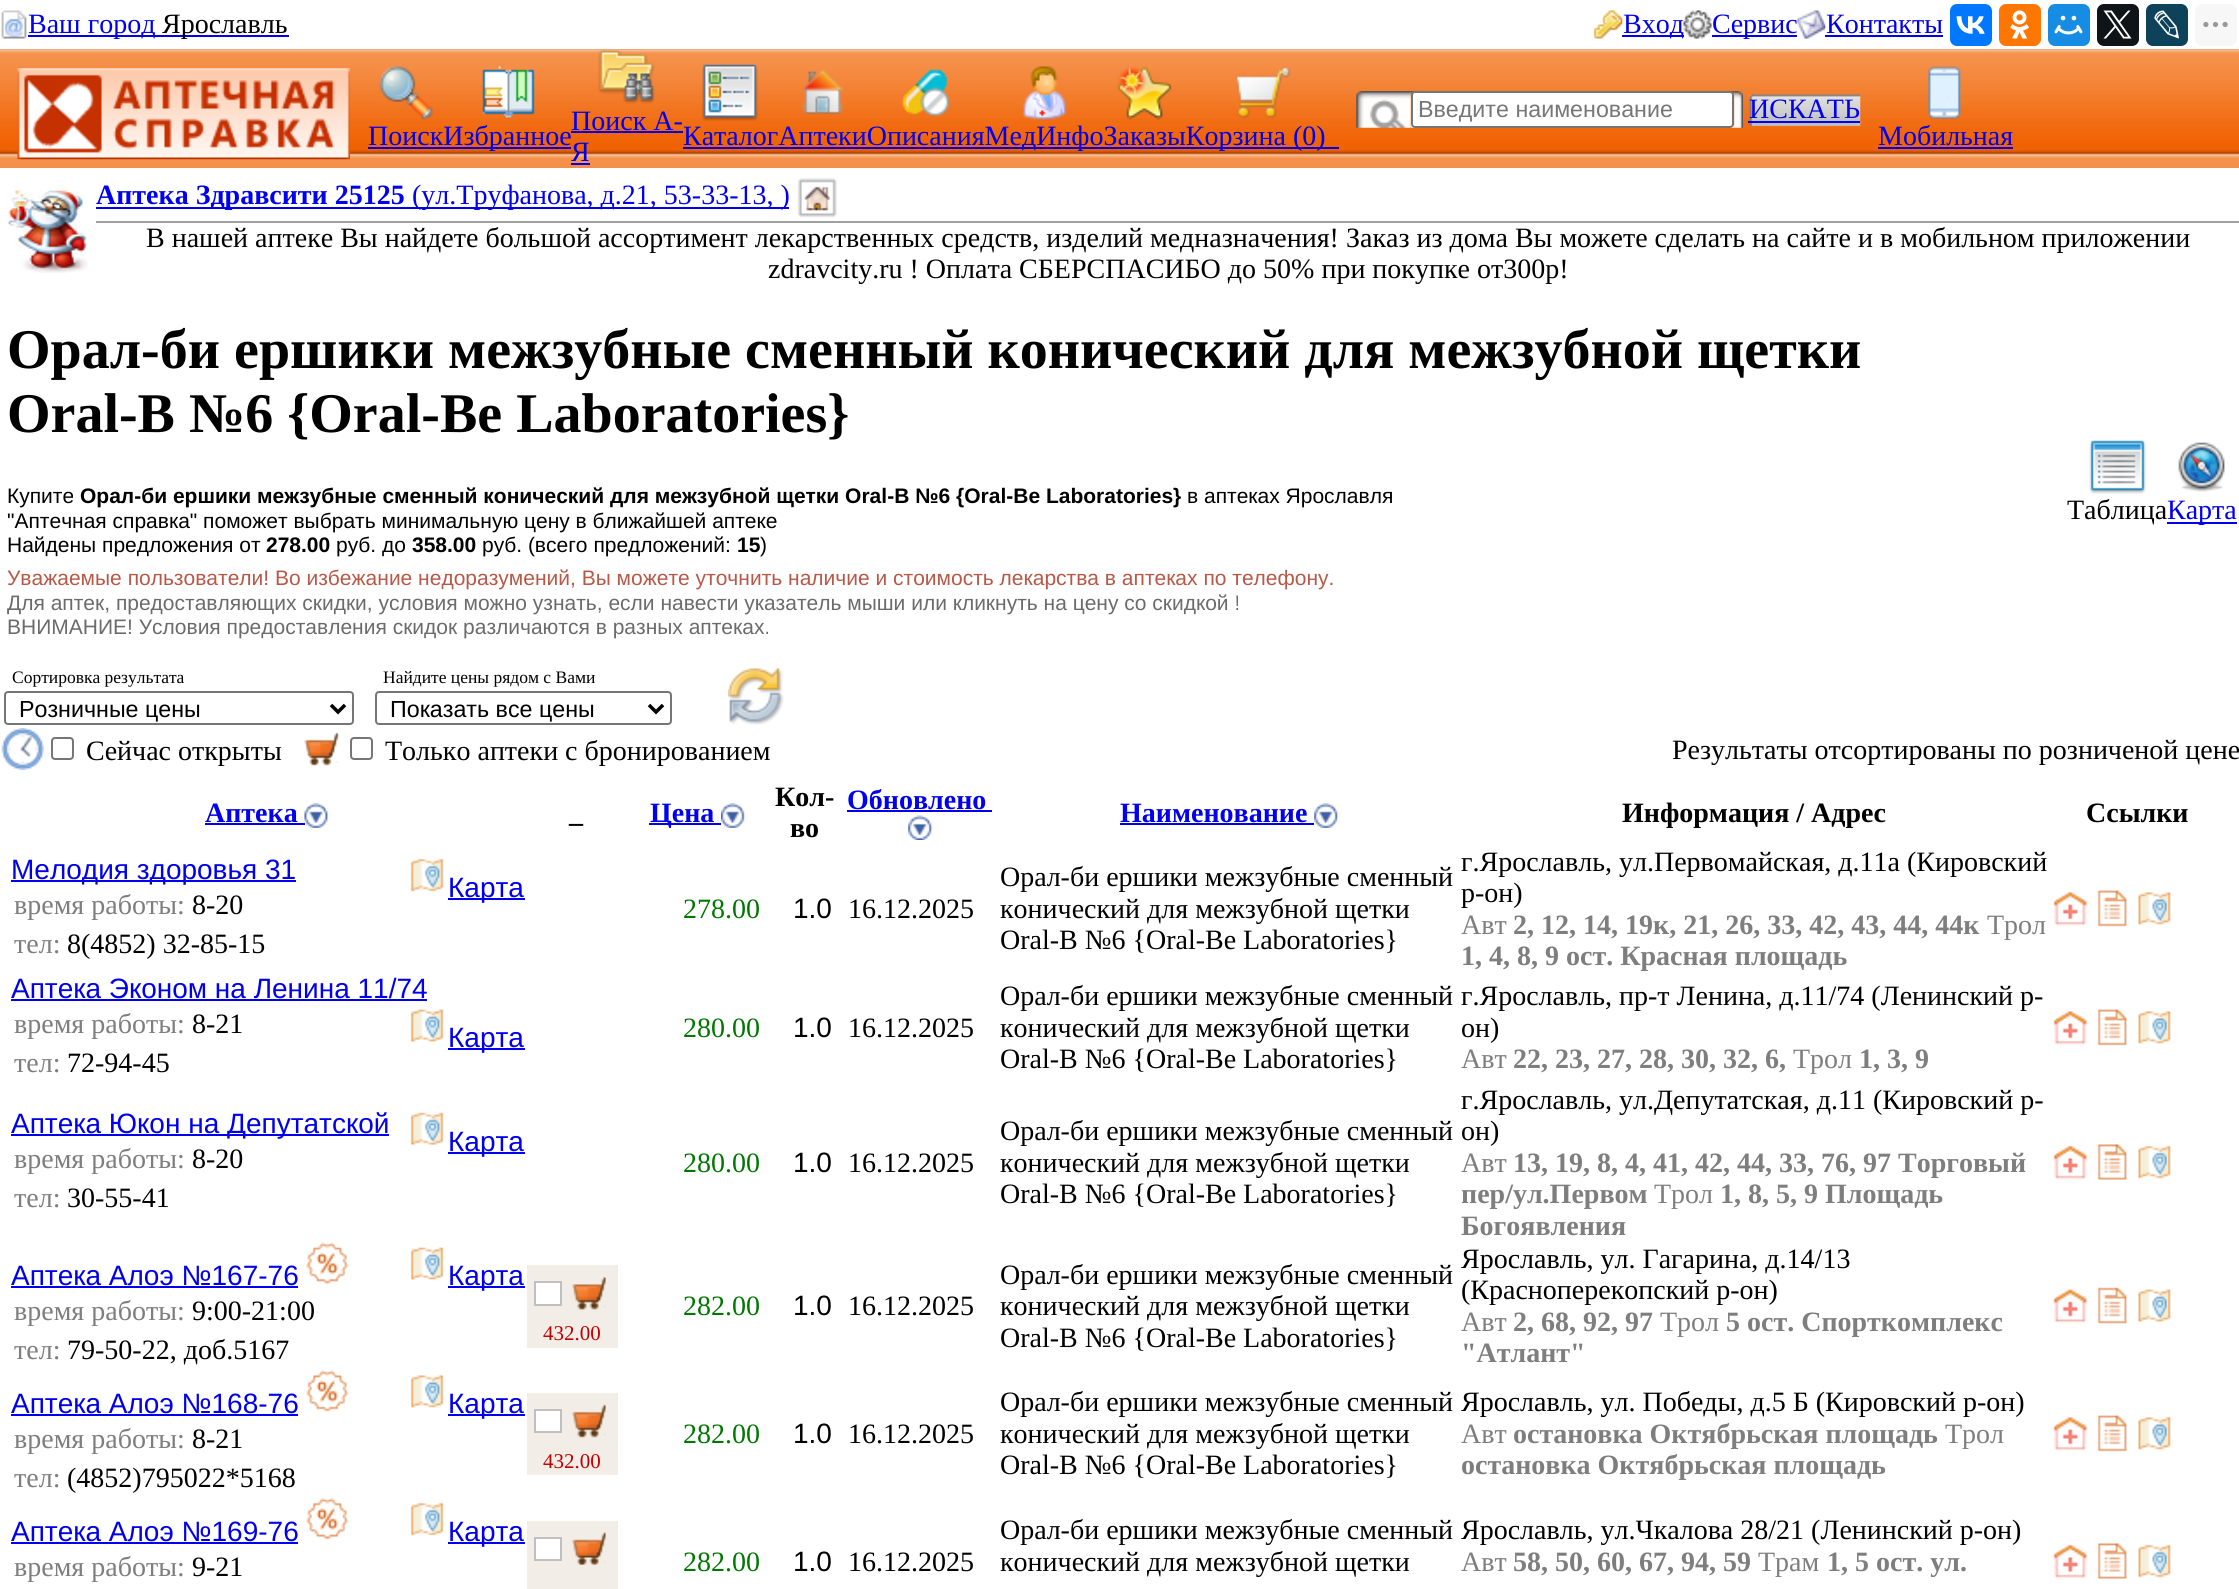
import math
import cairocffi as cairo

surface = cairo.ImageSurface(cairo.FORMAT_RGB24, 2239, 1589)
cr = cairo.Context(surface)
options = cairo.FontOptions()
options.set_hint_metrics(cairo.HINT_METRICS_OFF)
options.set_hint_style(cairo.HINT_STYLE_NONE)
cr.set_font_options(options)
cr.set_miter_limit(4)


def use_color(code):
    cr.set_source_rgb(*(v / 255 for v in bytes.fromhex(code[-6:])))


def round_rect(x, y, w, h, r):
    cr.new_sub_path()
    for i, (u, v) in enumerate([(x + w - r, y + h - r), (x + r, y + h - r), (x + r, y + r), (x + w - r, y + r)]):
        cr.arc(u, v, r, i * math.pi / 2, (i + 1) * math.pi / 2)
    cr.close_path()


def picture(path, x, y, w, h):
    cr.save()
    cr.set_source_surface(cairo.ImageSurface.create_from_png(path), x, y)
    cr.rectangle(x, y, w, h)
    cr.fill()
    cr.restore()


use_color("#ffffff")
cr.paint()
picture("img1.png", 1, 10, 26, 29)
use_color("#0000ee")
cr.rectangle(28, 35, 261, 2)
cr.fill()
cr.select_font_face("Liberation Serif")
cr.set_font_size(28)
cr.move_to(28, 33)
cr.show_text("Ваш город")
use_color("#000000")
cr.move_to(162, 33)
cr.show_text("Ярославль")
picture("img2.png", 1594, 10, 29, 29)
use_color("#0000ee")
cr.rectangle(1622, 35, 62, 2)
cr.fill()
cr.move_to(1623, 33)
cr.show_text("Вход")
picture("img3.png", 1683, 10, 29, 29)
cr.rectangle(1712, 35, 85, 2)
cr.fill()
cr.move_to(1712, 33)
cr.show_text("Сервис")
picture("img4.png", 1797, 10, 29, 29)
cr.move_to(1826, 33)
cr.show_text("Контакты")
cr.rectangle(1825, 35, 118, 2)
cr.fill()
use_color("#0077ff")
round_rect(1950, 4, 42, 42, 7)
cr.fill()
picture("img5.png", 1956, 16, 29, 18)
use_color("#ff7700")
round_rect(1999, 4, 42, 42, 7)
cr.fill()
picture("img6.png", 2010, 10, 19, 29)
use_color("#168de2")
round_rect(2048, 4, 42, 42, 7)
cr.fill()
picture("img7.png", 2054, 15, 29, 20)
use_color("#0f1419")
round_rect(2097, 4, 42, 42, 7)
cr.fill()
picture("img8.png", 2103, 10, 29, 29)
use_color("#0d425a")
round_rect(2146, 4, 42, 42, 7)
cr.fill()
picture("img9.png", 2154, 10, 25, 29)
use_color("#f7f7f7")
round_rect(2195, 4, 42, 42, 7)
cr.fill()
picture("img10.png", 2203, 21, 25, 7)
picture("img11.png", 0, 49, 2239, 119)
picture("img12.png", 17, 68, 333, 92)
picture("img13.png", 482, 66, 53, 52)
picture("img14.png", 598, 50, 57, 54)
use_color("#0000ee")
cr.move_to(571, 130)
cr.show_text("Поиск А-")
cr.rectangle(571, 131, 112, 2)
cr.fill()
cr.move_to(571, 161)
cr.show_text("Я")
cr.rectangle(571, 163, 19, 2)
cr.fill()
picture("img15.png", 801, 69, 44, 46)
picture("img16.png", 901, 69, 49, 49)
picture("img17.png", 1023, 66, 44, 54)
picture("img18.png", 1117, 66, 55, 54)
picture("img19.png", 1236, 66, 55, 53)
picture("img20.png", 1356, 91, 9, 37)
picture("img21.png", 1365, 91, 46, 37)
picture("img22.png", 1410, 91, 325, 37)
use_color("#ffffff")
round_rect(1412, 92, 321, 35, 3)
cr.fill_preserve()
use_color("#767676")
cr.stroke()
cr.select_font_face("Liberation Sans")
cr.set_font_size(23.25)
use_color("#777777")
cr.move_to(1418, 117)
cr.show_text("Введите наименование")
picture("img23.png", 1734, 91, 9, 37)
picture("img24.png", 1748, 94, 113, 32)
cr.select_font_face("Liberation Serif")
cr.set_font_size(28)
use_color("#0000ee")
cr.move_to(1749, 118)
cr.show_text("ИСКАТЬ")
cr.rectangle(1748, 121, 112, 2)
cr.fill()
picture("img25.png", 379, 66, 54, 54)
cr.rectangle(368, 147, 203, 2)
cr.fill()
cr.move_to(368, 145)
cr.show_text("ПоискИзбранное")
picture("img26.png", 702, 64, 56, 57)
cr.rectangle(683, 147, 656, 2)
cr.fill()
cr.move_to(683, 145)
cr.show_text("КаталогАптекиОписанияМедИнфоЗаказыКорзина (0)")
picture("img27.png", 1928, 66, 33, 54)
cr.move_to(1878, 145)
cr.show_text("Мобильная")
cr.rectangle(1878, 147, 135, 2)
cr.fill()
picture("img28.png", 7, 189, 81, 84)
cr.rectangle(96, 207, 693, 2)
cr.fill()
cr.select_font_face("Liberation Serif", cairo.FONT_SLANT_NORMAL, cairo.FONT_WEIGHT_BOLD)
cr.move_to(96, 204)
cr.show_text("Аптека Здравсити 25125")
cr.select_font_face("Liberation Serif")
cr.move_to(412, 204)
cr.show_text("(ул.Труфанова, д.21, 53-33-13, )")
picture("img29.png", 797, 178, 40, 40)
use_color("#a0a0a0")
cr.rectangle(96, 221, 2143, 2)
cr.fill()
use_color("#000000")
cr.move_to(146, 247)
cr.show_text("В нашей аптеке Вы найдете большой ассортимент лекарственных средств, изделий медназначения! Заказ из дома Вы можете cделать на сайте и в мобильном приложении")
cr.move_to(768, 278)
cr.show_text("zdravcity.ru ! Оплата СБЕРСПАСИБО до 50% при покупке от300р!")
cr.select_font_face("Liberation Serif", cairo.FONT_SLANT_NORMAL, cairo.FONT_WEIGHT_BOLD)
cr.set_font_size(56)
cr.move_to(7, 368)
cr.show_text("Орал-би ершики межзубные сменный конический для межзубной щетки")
cr.move_to(7, 432)
cr.show_text("Oral-B №6 {Oral-Be Laboratories}")
cr.select_font_face("Liberation Sans")
cr.set_font_size(21)
cr.move_to(7, 503)
cr.show_text("Купите")
cr.select_font_face("Liberation Sans", cairo.FONT_SLANT_NORMAL, cairo.FONT_WEIGHT_BOLD)
cr.move_to(80, 503)
cr.show_text("Орал-би ершики межзубные сменный конический для межзубной щетки Oral-B №6 {Oral-Be Laboratories}")
cr.select_font_face("Liberation Sans")
cr.move_to(1187, 503)
cr.show_text("в аптеках Ярославля")
cr.move_to(7, 528)
cr.show_text("\"Аптечная справка\" поможет выбрать минимальную цену в ближайшей аптеке")
cr.move_to(7, 552)
cr.show_text("Найдены предложения от")
cr.select_font_face("Liberation Sans", cairo.FONT_SLANT_NORMAL, cairo.FONT_WEIGHT_BOLD)
cr.move_to(266, 552)
cr.show_text("278.00")
cr.select_font_face("Liberation Sans")
cr.move_to(336, 552)
cr.show_text("руб. до")
cr.select_font_face("Liberation Sans", cairo.FONT_SLANT_NORMAL, cairo.FONT_WEIGHT_BOLD)
cr.move_to(412, 552)
cr.show_text("358.00")
cr.select_font_face("Liberation Sans")
cr.move_to(482, 552)
cr.show_text("руб. (всего предложений:")
cr.select_font_face("Liberation Sans", cairo.FONT_SLANT_NORMAL, cairo.FONT_WEIGHT_BOLD)
cr.move_to(737, 552)
cr.show_text("15")
cr.select_font_face("Liberation Sans")
cr.move_to(760, 552)
cr.show_text(")")
use_color("#b85847")
cr.move_to(7, 585)
cr.show_text("Уважаемые пользователи! Во избежание недоразумений, Вы можете уточнить наличие и стоимость лекарства в аптеках по телефону.")
use_color("#6b6b6b")
cr.move_to(7, 610)
cr.show_text("Для аптек, предоставляющих скидки, условия можно узнать, если навести указатель мыши или кликнуть на цену со скидкой !")
cr.move_to(7, 634)
cr.show_text("ВНИМАНИЕ! Условия предоставления скидок различаются в разных аптеках.")
picture("img30.png", 2089, 440, 57, 54)
cr.select_font_face("Liberation Serif")
cr.set_font_size(28)
use_color("#000000")
cr.move_to(2067, 519)
cr.show_text("Таблица")
picture("img31.png", 2178, 442, 47, 50)
use_color("#0000ee")
cr.rectangle(2167, 522, 70, 2)
cr.fill()
cr.move_to(2167, 519)
cr.show_text("Карта")
cr.set_font_size(17.5)
use_color("#000000")
cr.move_to(12, 683)
cr.show_text("Сортировка результата")
round_rect(5, 692, 348, 32, 3)
use_color("#767676")
cr.stroke()
cr.new_path()
cr.move_to(331, 705)
cr.line_to(338, 712)
cr.line_to(345, 705)
use_color("#000000")
cr.set_line_width(3.5)
cr.stroke()
cr.select_font_face("Liberation Sans")
cr.set_font_size(23.25)
cr.move_to(19, 717)
cr.show_text("Розничные цены")
cr.select_font_face("Liberation Serif")
cr.set_font_size(17.5)
cr.move_to(383, 683)
cr.show_text("Найдите цены рядом с Вами")
round_rect(376, 692, 295, 32, 3)
use_color("#767676")
cr.set_line_width(2)
cr.stroke()
cr.new_path()
cr.move_to(649, 705)
cr.line_to(656, 712)
cr.line_to(663, 705)
use_color("#000000")
cr.set_line_width(3.5)
cr.stroke()
cr.select_font_face("Liberation Sans")
cr.set_font_size(23.25)
cr.move_to(390, 717)
cr.show_text("Показать все цены")
picture("img32.png", 728, 668, 56, 57)
picture("img33.png", 1, 728, 43, 42)
round_rect(52, 738, 21, 21, 3)
use_color("#767676")
cr.set_line_width(2)
cr.stroke()
cr.select_font_face("Liberation Serif")
cr.set_font_size(28)
use_color("#000000")
cr.move_to(86, 760)
cr.show_text("Сейчас открыты")
picture("img34.png", 304, 732, 35, 35)
round_rect(351, 738, 21, 21, 3)
use_color("#767676")
cr.stroke()
use_color("#000000")
cr.move_to(385, 760)
cr.show_text("Только аптеки с бронированием")
cr.move_to(1672, 759)
cr.show_text("Результаты отсортированы по розниченой цене")
cr.select_font_face("Liberation Serif", cairo.FONT_SLANT_NORMAL, cairo.FONT_WEIGHT_BOLD)
cr.move_to(775, 806)
cr.show_text("Кол-")
cr.move_to(790, 837)
cr.show_text("во")
use_color("#0000ee")
cr.move_to(847, 809)
cr.show_text("Обновлено")
cr.rectangle(847, 810, 145, 2)
cr.fill()
picture("img35.png", 908, 815, 25, 25)
cr.move_to(205, 822)
cr.show_text("Аптека")
cr.rectangle(205, 823, 100, 2)
cr.fill()
picture("img36.png", 304, 803, 25, 25)
cr.rectangle(649, 823, 72, 2)
cr.fill()
cr.move_to(650, 822)
cr.show_text("Цена")
picture("img37.png", 721, 803, 25, 25)
cr.move_to(1120, 822)
cr.show_text("Наименование")
cr.rectangle(1120, 823, 194, 2)
cr.fill()
picture("img38.png", 1314, 803, 25, 25)
use_color("#000000")
cr.move_to(1622, 822)
cr.show_text("Информация / Адрес")
cr.move_to(2086, 822)
cr.show_text("Ссылки")
cr.move_to(569, 822)
cr.show_text("_")
use_color("#0000ee")
cr.rectangle(11, 880, 285, 2)
cr.fill()
cr.select_font_face("Liberation Sans")
cr.move_to(11, 879)
cr.show_text("Мелодия здоровья 31")
picture("img39.png", 410, 858, 34, 34)
cr.rectangle(448, 898, 77, 2)
cr.fill()
cr.move_to(448, 897)
cr.show_text("Карта")
cr.select_font_face("Liberation Serif")
use_color("#7e7e7e")
cr.move_to(14, 914)
cr.show_text("время работы:")
use_color("#000000")
cr.move_to(192, 914)
cr.show_text("8-20")
use_color("#7e7e7e")
cr.move_to(14, 953)
cr.show_text("тел:")
use_color("#000000")
cr.move_to(67, 953)
cr.show_text("8(4852) 32-85-15")
use_color("#007700")
cr.move_to(683, 918)
cr.show_text("278.00")
cr.select_font_face("Liberation Sans")
use_color("#000000")
cr.move_to(793, 918)
cr.show_text("1.0")
cr.select_font_face("Liberation Serif")
cr.move_to(848, 918)
cr.show_text("16.12.2025")
cr.move_to(1000, 886)
cr.show_text("Орал-би ершики межзубные сменный")
cr.move_to(1000, 918)
cr.show_text("конический для межзубной щетки")
cr.move_to(1000, 949)
cr.show_text("Oral-B №6 {Oral-Be Laboratories}")
cr.move_to(1461, 871)
cr.show_text("г.Ярославль, ул.Первомайская, д.11а (Кировский")
cr.move_to(1461, 902)
cr.show_text("р-он)")
use_color("#7e7e7e")
cr.move_to(1461, 934)
cr.show_text("Авт")
cr.select_font_face("Liberation Serif", cairo.FONT_SLANT_NORMAL, cairo.FONT_WEIGHT_BOLD)
cr.move_to(1513, 934)
cr.show_text("2, 12, 14, 19к, 21, 26, 33, 42, 43, 44, 44к")
cr.select_font_face("Liberation Serif")
cr.move_to(1987, 934)
cr.show_text("Трол")
cr.select_font_face("Liberation Serif", cairo.FONT_SLANT_NORMAL, cairo.FONT_WEIGHT_BOLD)
cr.move_to(1461, 965)
cr.show_text("1, 4, 8, 9 ост. Красная площадь")
picture("img40.png", 2052, 892, 36, 34)
picture("img41.png", 2097, 890, 30, 37)
picture("img42.png", 2138, 892, 33, 33)
cr.select_font_face("Liberation Sans")
use_color("#0000ee")
cr.move_to(11, 998)
cr.show_text("Аптека Эконом на Ленина 11/74")
cr.rectangle(11, 999, 416, 2)
cr.fill()
picture("img43.png", 410, 1009, 34, 33)
cr.rectangle(448, 1048, 77, 2)
cr.fill()
cr.move_to(448, 1047)
cr.show_text("Карта")
cr.select_font_face("Liberation Serif")
use_color("#7e7e7e")
cr.move_to(14, 1033)
cr.show_text("время работы:")
use_color("#000000")
cr.move_to(192, 1033)
cr.show_text("8-21")
use_color("#7e7e7e")
cr.move_to(14, 1072)
cr.show_text("тел:")
use_color("#000000")
cr.move_to(67, 1072)
cr.show_text("72-94-45")
use_color("#007700")
cr.move_to(683, 1037)
cr.show_text("280.00")
cr.select_font_face("Liberation Sans")
use_color("#000000")
cr.move_to(793, 1037)
cr.show_text("1.0")
cr.select_font_face("Liberation Serif")
cr.move_to(848, 1037)
cr.show_text("16.12.2025")
cr.move_to(1000, 1005)
cr.show_text("Орал-би ершики межзубные сменный")
cr.move_to(1000, 1037)
cr.show_text("конический для межзубной щетки")
cr.move_to(1000, 1068)
cr.show_text("Oral-B №6 {Oral-Be Laboratories}")
cr.move_to(1461, 1005)
cr.show_text("г.Ярославль, пр-т Ленина, д.11/74 (Ленинский р-")
cr.move_to(1461, 1037)
cr.show_text("он)")
use_color("#7e7e7e")
cr.move_to(1461, 1068)
cr.show_text("Авт")
cr.select_font_face("Liberation Serif", cairo.FONT_SLANT_NORMAL, cairo.FONT_WEIGHT_BOLD)
cr.move_to(1513, 1068)
cr.show_text("22, 23, 27, 28, 30, 32, 6,")
cr.select_font_face("Liberation Serif")
cr.move_to(1793, 1068)
cr.show_text("Трол")
cr.select_font_face("Liberation Serif", cairo.FONT_SLANT_NORMAL, cairo.FONT_WEIGHT_BOLD)
cr.move_to(1859, 1068)
cr.show_text("1, 3, 9")
picture("img40.png", 2052, 1011, 36, 34)
picture("img41.png", 2097, 1009, 30, 37)
picture("img42.png", 2138, 1011, 33, 33)
use_color("#0000ee")
cr.rectangle(11, 1134, 378, 2)
cr.fill()
cr.select_font_face("Liberation Sans")
cr.move_to(11, 1133)
cr.show_text("Аптека Юкон на Депутатской")
picture("img44.png", 410, 1112, 34, 33)
cr.rectangle(448, 1152, 77, 2)
cr.fill()
cr.move_to(448, 1151)
cr.show_text("Карта")
cr.select_font_face("Liberation Serif")
use_color("#7e7e7e")
cr.move_to(14, 1168)
cr.show_text("время работы:")
use_color("#000000")
cr.move_to(192, 1168)
cr.show_text("8-20")
use_color("#7e7e7e")
cr.move_to(14, 1207)
cr.show_text("тел:")
use_color("#000000")
cr.move_to(67, 1207)
cr.show_text("30-55-41")
use_color("#007700")
cr.move_to(683, 1172)
cr.show_text("280.00")
cr.select_font_face("Liberation Sans")
use_color("#000000")
cr.move_to(793, 1172)
cr.show_text("1.0")
cr.select_font_face("Liberation Serif")
cr.move_to(848, 1172)
cr.show_text("16.12.2025")
cr.move_to(1000, 1140)
cr.show_text("Орал-би ершики межзубные сменный")
cr.move_to(1000, 1172)
cr.show_text("конический для межзубной щетки")
cr.move_to(1000, 1203)
cr.show_text("Oral-B №6 {Oral-Be Laboratories}")
cr.move_to(1461, 1109)
cr.show_text("г.Ярославль, ул.Депутатская, д.11 (Кировский р-")
cr.move_to(1461, 1140)
cr.show_text("он)")
use_color("#7e7e7e")
cr.move_to(1461, 1172)
cr.show_text("Авт")
cr.select_font_face("Liberation Serif", cairo.FONT_SLANT_NORMAL, cairo.FONT_WEIGHT_BOLD)
cr.move_to(1513, 1172)
cr.show_text("13, 19, 8, 4, 41, 42, 44, 33, 76, 97 Торговый")
cr.move_to(1461, 1203)
cr.show_text("пер/ул.Первом")
cr.select_font_face("Liberation Serif")
cr.move_to(1654, 1203)
cr.show_text("Трол")
cr.select_font_face("Liberation Serif", cairo.FONT_SLANT_NORMAL, cairo.FONT_WEIGHT_BOLD)
cr.move_to(1720, 1203)
cr.show_text("1, 8, 5, 9 Площадь")
cr.move_to(1461, 1235)
cr.show_text("Богоявления")
picture("img45.png", 2052, 1145, 36, 35)
picture("img46.png", 2097, 1144, 30, 36)
picture("img47.png", 2138, 1145, 33, 34)
cr.select_font_face("Liberation Sans")
use_color("#0000ee")
cr.move_to(11, 1285)
cr.show_text("Аптека Алоэ №167-76")
cr.rectangle(11, 1286, 287, 2)
cr.fill()
picture("img48.png", 306, 1242, 43, 43)
picture("img43.png", 410, 1247, 34, 33)
cr.rectangle(448, 1286, 77, 2)
cr.fill()
cr.move_to(448, 1285)
cr.show_text("Карта")
cr.select_font_face("Liberation Serif")
use_color("#7e7e7e")
cr.move_to(14, 1320)
cr.show_text("время работы:")
use_color("#000000")
cr.move_to(192, 1320)
cr.show_text("9:00-21:00")
use_color("#7e7e7e")
cr.move_to(14, 1359)
cr.show_text("тел:")
use_color("#000000")
cr.move_to(67, 1359)
cr.show_text("79-50-22, доб.5167")
use_color("#007700")
cr.move_to(683, 1315)
cr.show_text("282.00")
cr.select_font_face("Liberation Sans")
use_color("#000000")
cr.move_to(793, 1315)
cr.show_text("1.0")
cr.select_font_face("Liberation Serif")
cr.move_to(848, 1315)
cr.show_text("16.12.2025")
cr.move_to(1000, 1284)
cr.show_text("Орал-би ершики межзубные сменный")
cr.move_to(1000, 1315)
cr.show_text("конический для межзубной щетки")
cr.move_to(1000, 1347)
cr.show_text("Oral-B №6 {Oral-Be Laboratories}")
cr.move_to(1461, 1268)
cr.show_text("Ярославль, ул. Гагарина, д.14/13")
cr.move_to(1461, 1299)
cr.show_text("(Красноперекопский р-он)")
use_color("#7e7e7e")
cr.move_to(1461, 1331)
cr.show_text("Авт")
cr.select_font_face("Liberation Serif", cairo.FONT_SLANT_NORMAL, cairo.FONT_WEIGHT_BOLD)
cr.move_to(1513, 1331)
cr.show_text("2, 68, 92, 97")
cr.select_font_face("Liberation Serif")
cr.move_to(1660, 1331)
cr.show_text("Трол")
cr.select_font_face("Liberation Serif", cairo.FONT_SLANT_NORMAL, cairo.FONT_WEIGHT_BOLD)
cr.move_to(1726, 1331)
cr.show_text("5 ост. Спорткомплекс")
cr.move_to(1461, 1362)
cr.show_text("\"Атлант\"")
picture("img49.png", 2052, 1289, 36, 34)
picture("img50.png", 2097, 1287, 30, 37)
picture("img51.png", 2138, 1289, 33, 33)
use_color("#f2ede6")
cr.rectangle(527, 1265, 91, 83)
cr.fill()
use_color("#ffffff")
cr.rectangle(535, 1282, 26, 23)
cr.fill_preserve()
use_color("#c0c0c0")
cr.stroke()
picture("img52.png", 572, 1277, 34, 34)
cr.select_font_face("Liberation Serif")
cr.set_font_size(21)
use_color("#c10000")
cr.move_to(543, 1340)
cr.show_text("432.00")
cr.select_font_face("Liberation Sans")
cr.set_font_size(28)
use_color("#0000ee")
cr.move_to(11, 1413)
cr.show_text("Аптека Алоэ №168-76")
cr.rectangle(11, 1414, 287, 2)
cr.fill()
picture("img53.png", 306, 1370, 43, 43)
picture("img54.png", 410, 1375, 34, 33)
cr.rectangle(448, 1414, 77, 2)
cr.fill()
cr.move_to(448, 1413)
cr.show_text("Карта")
cr.select_font_face("Liberation Serif")
use_color("#7e7e7e")
cr.move_to(14, 1448)
cr.show_text("время работы:")
use_color("#000000")
cr.move_to(192, 1448)
cr.show_text("8-21")
use_color("#7e7e7e")
cr.move_to(14, 1487)
cr.show_text("тел:")
use_color("#000000")
cr.move_to(67, 1487)
cr.show_text("(4852)795022*5168")
use_color("#007700")
cr.move_to(683, 1443)
cr.show_text("282.00")
cr.select_font_face("Liberation Sans")
use_color("#000000")
cr.move_to(793, 1443)
cr.show_text("1.0")
cr.select_font_face("Liberation Serif")
cr.move_to(848, 1443)
cr.show_text("16.12.2025")
cr.move_to(1000, 1411)
cr.show_text("Орал-би ершики межзубные сменный")
cr.move_to(1000, 1443)
cr.show_text("конический для межзубной щетки")
cr.move_to(1000, 1474)
cr.show_text("Oral-B №6 {Oral-Be Laboratories}")
cr.move_to(1461, 1411)
cr.show_text("Ярославль, ул. Победы, д.5 Б (Кировский р-он)")
use_color("#7e7e7e")
cr.move_to(1461, 1443)
cr.show_text("Авт")
cr.select_font_face("Liberation Serif", cairo.FONT_SLANT_NORMAL, cairo.FONT_WEIGHT_BOLD)
cr.move_to(1513, 1443)
cr.show_text("остановка Октябрьская площадь")
cr.select_font_face("Liberation Serif")
cr.move_to(1945, 1443)
cr.show_text("Трол")
cr.select_font_face("Liberation Serif", cairo.FONT_SLANT_NORMAL, cairo.FONT_WEIGHT_BOLD)
cr.move_to(1461, 1474)
cr.show_text("остановка Октябрьская площадь")
picture("img40.png", 2052, 1417, 36, 34)
picture("img41.png", 2097, 1415, 30, 37)
picture("img42.png", 2138, 1417, 33, 33)
use_color("#f2ede6")
cr.rectangle(527, 1393, 91, 82)
cr.fill()
use_color("#ffffff")
cr.rectangle(535, 1410, 26, 22)
cr.fill_preserve()
use_color("#c0c0c0")
cr.stroke()
picture("img55.png", 572, 1404, 34, 34)
cr.select_font_face("Liberation Serif")
cr.set_font_size(21)
use_color("#c10000")
cr.move_to(543, 1468)
cr.show_text("432.00")
cr.select_font_face("Liberation Sans")
cr.set_font_size(28)
use_color("#0000ee")
cr.move_to(11, 1541)
cr.show_text("Аптека Алоэ №169-76")
cr.rectangle(11, 1542, 287, 2)
cr.fill()
picture("img56.png", 306, 1498, 43, 42)
picture("img39.png", 410, 1502, 34, 34)
cr.rectangle(448, 1542, 77, 2)
cr.fill()
cr.move_to(448, 1541)
cr.show_text("Карта")
cr.select_font_face("Liberation Serif")
use_color("#7e7e7e")
cr.move_to(14, 1576)
cr.show_text("время работы:")
use_color("#000000")
cr.move_to(192, 1576)
cr.show_text("9-21")
use_color("#f2ede6")
cr.rectangle(527, 1521, 91, 68)
cr.fill()
use_color("#ffffff")
cr.rectangle(535, 1538, 26, 22)
cr.fill_preserve()
use_color("#c0c0c0")
cr.stroke()
picture("img57.png", 572, 1532, 34, 34)
use_color("#007700")
cr.move_to(683, 1571)
cr.show_text("282.00")
cr.select_font_face("Liberation Sans")
use_color("#000000")
cr.move_to(793, 1571)
cr.show_text("1.0")
cr.select_font_face("Liberation Serif")
cr.move_to(848, 1571)
cr.show_text("16.12.2025")
cr.move_to(1000, 1539)
cr.show_text("Орал-би ершики межзубные сменный")
cr.move_to(1000, 1571)
cr.show_text("конический для межзубной щетки")
cr.move_to(1461, 1539)
cr.show_text("Ярославль, ул.Чкалова 28/21 (Ленинский р-он)")
use_color("#7e7e7e")
cr.move_to(1461, 1571)
cr.show_text("Авт")
cr.select_font_face("Liberation Serif", cairo.FONT_SLANT_NORMAL, cairo.FONT_WEIGHT_BOLD)
cr.move_to(1513, 1571)
cr.show_text("58, 50, 60, 67, 94, 59")
cr.select_font_face("Liberation Serif")
cr.move_to(1758, 1571)
cr.show_text("Трам")
cr.select_font_face("Liberation Serif", cairo.FONT_SLANT_NORMAL, cairo.FONT_WEIGHT_BOLD)
cr.move_to(1827, 1571)
cr.show_text("1, 5 ост. ул.")
picture("img45.png", 2052, 1544, 36, 35)
picture("img46.png", 2097, 1543, 30, 36)
picture("img47.png", 2138, 1544, 33, 34)
surface.write_to_png("result.png")
